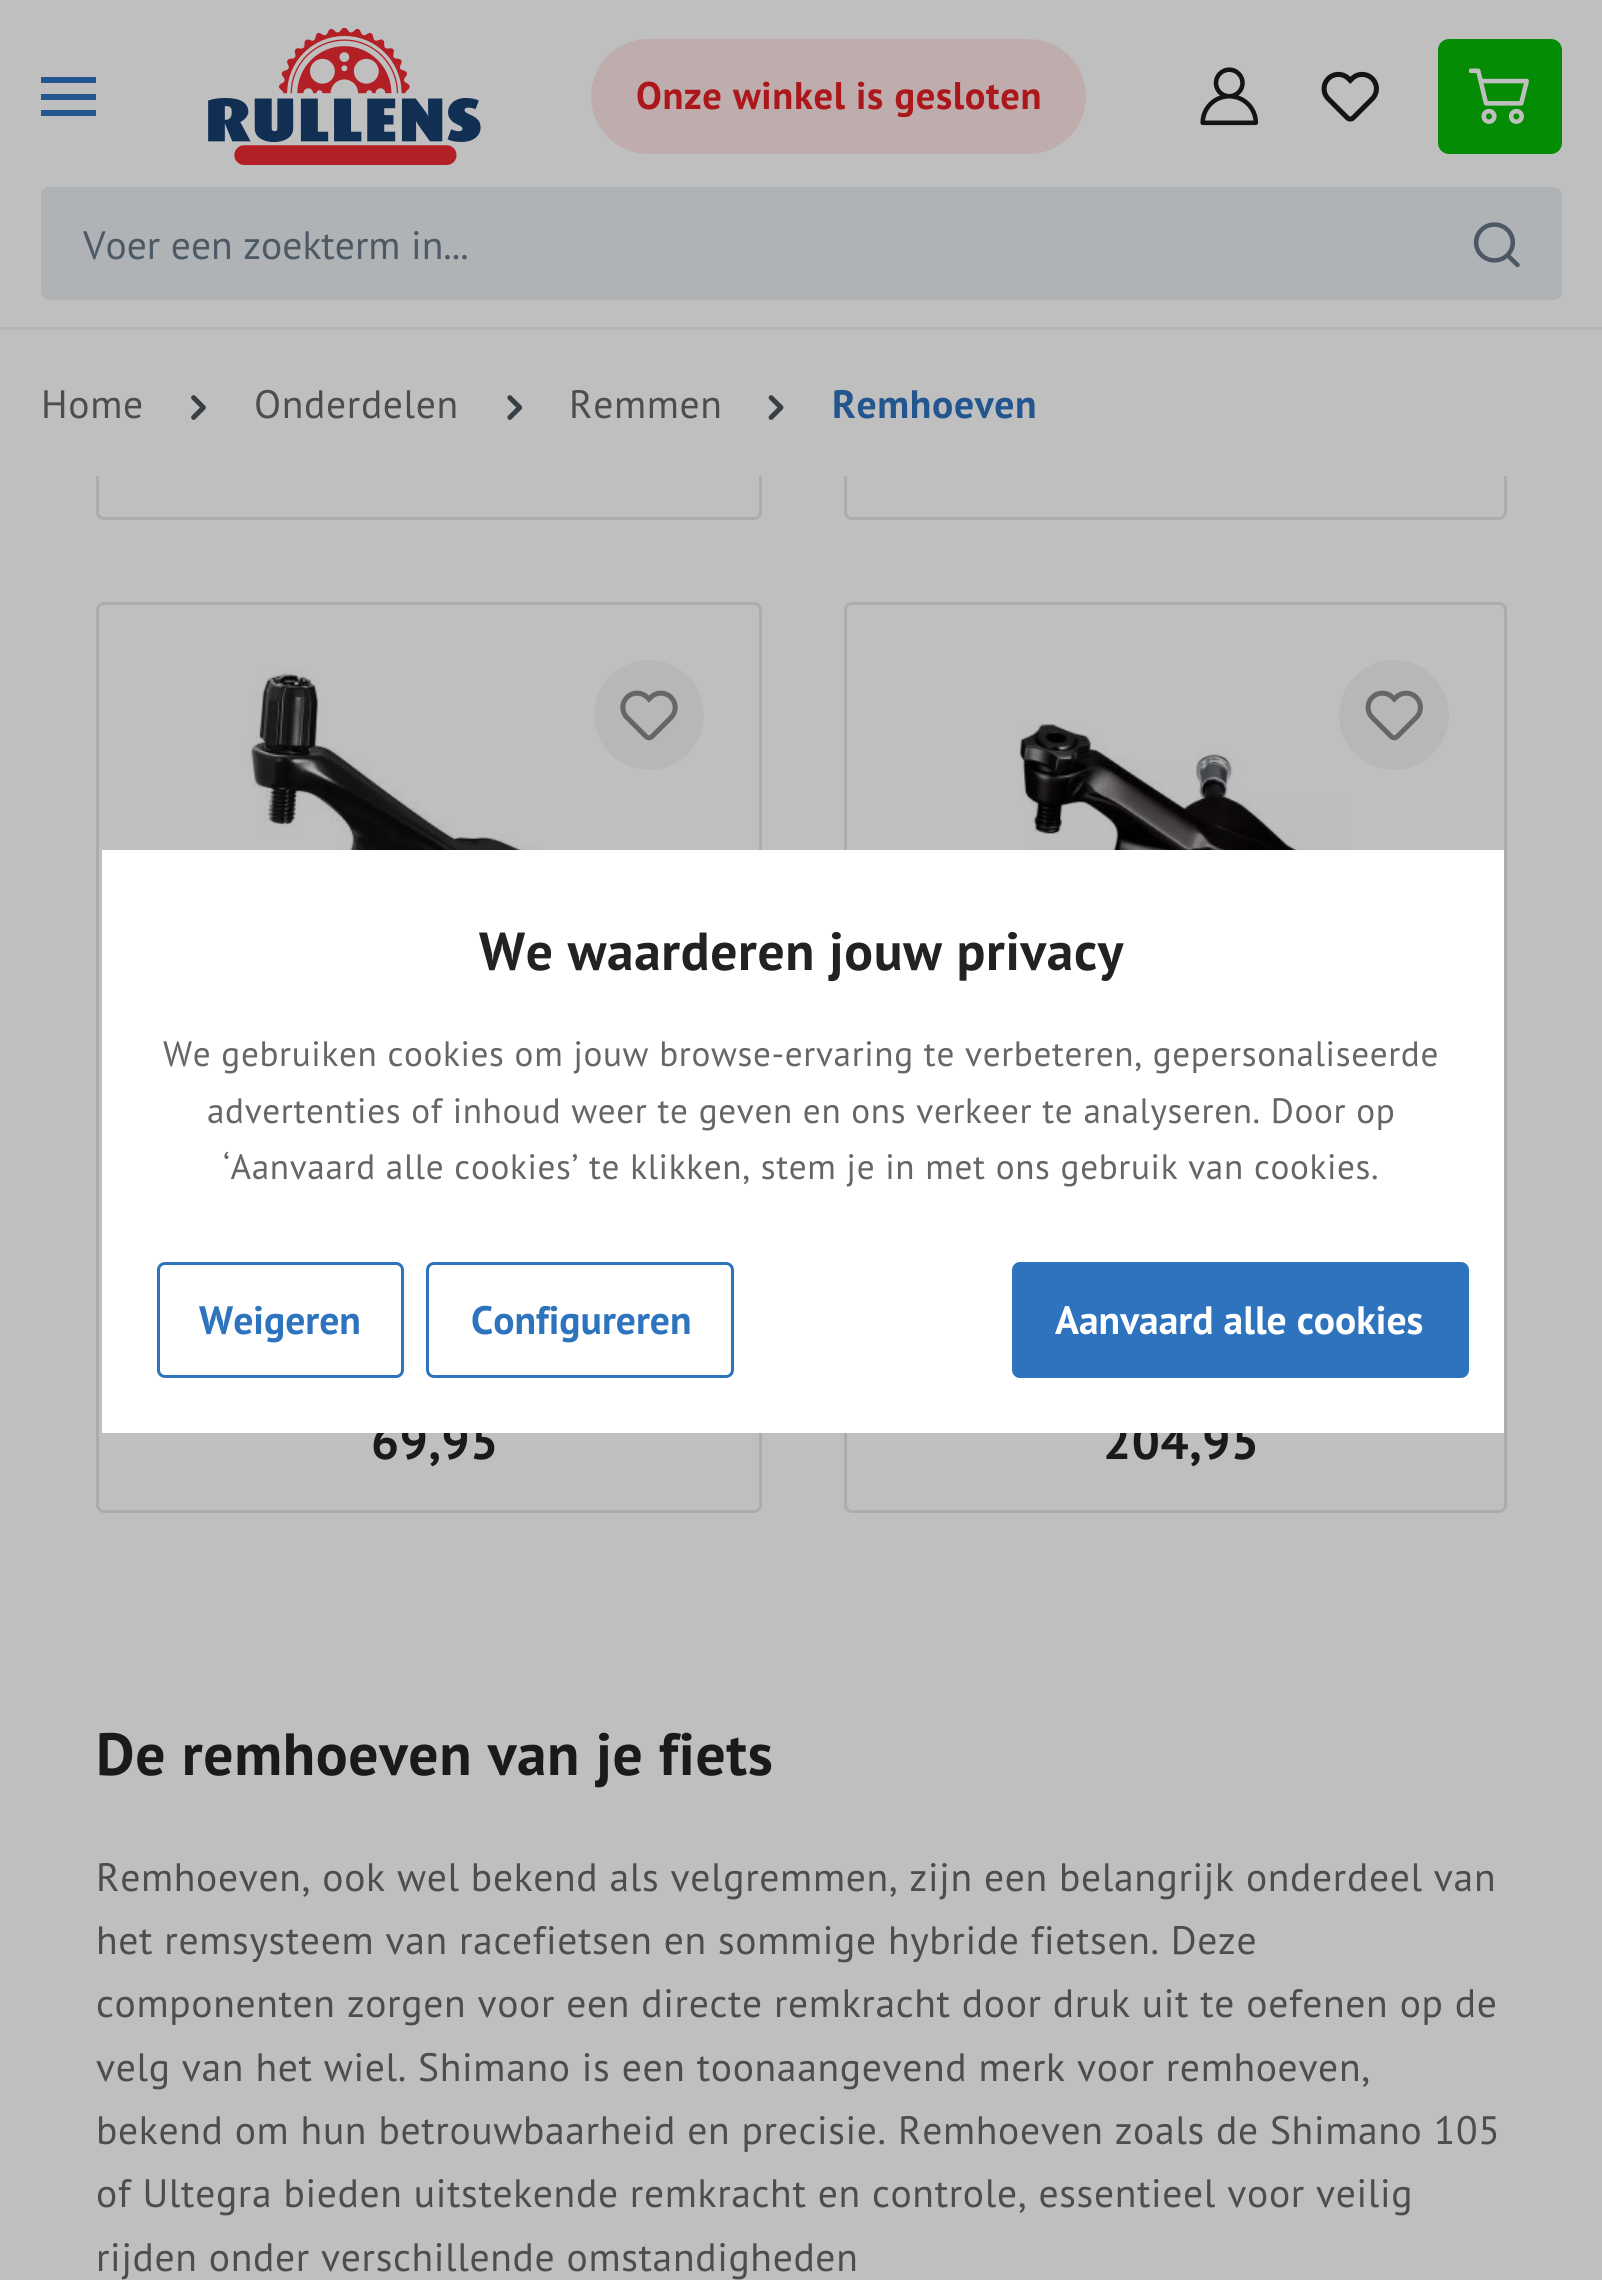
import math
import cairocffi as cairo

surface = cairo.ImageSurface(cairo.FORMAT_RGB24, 1602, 2280)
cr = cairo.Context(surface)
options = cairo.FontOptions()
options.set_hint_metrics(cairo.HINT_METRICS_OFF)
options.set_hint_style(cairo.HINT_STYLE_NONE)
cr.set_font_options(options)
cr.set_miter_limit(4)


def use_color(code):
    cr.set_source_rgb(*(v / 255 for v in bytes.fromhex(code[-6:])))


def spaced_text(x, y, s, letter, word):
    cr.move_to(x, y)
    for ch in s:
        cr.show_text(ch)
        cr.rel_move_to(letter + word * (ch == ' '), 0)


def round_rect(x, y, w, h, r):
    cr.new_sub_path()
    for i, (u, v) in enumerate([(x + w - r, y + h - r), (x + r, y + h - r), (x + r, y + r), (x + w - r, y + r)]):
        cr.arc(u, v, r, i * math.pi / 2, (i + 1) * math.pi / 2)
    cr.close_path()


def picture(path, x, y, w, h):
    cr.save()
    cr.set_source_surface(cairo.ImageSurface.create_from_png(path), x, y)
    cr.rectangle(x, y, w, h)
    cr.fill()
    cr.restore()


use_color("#bfbfbf")
cr.paint()
round_rect(97.5, -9.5, 663, 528, 6.5)
use_color("#acacac")
cr.set_line_width(3)
cr.stroke()
round_rect(845.5, -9.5, 660, 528, 6.5)
cr.stroke()
use_color("#bfbfbf")
cr.rectangle(96, 0, 1411, 327)
cr.fill()
use_color("#b5b5b5")
cr.rectangle(0, 327, 1602, 3)
cr.fill()
use_color("#23568f")
cr.rectangle(41, 77, 55, 6)
cr.fill()
cr.rectangle(41, 94, 55, 6)
cr.fill()
cr.rectangle(41, 110, 55, 6)
cr.fill()
picture("img1.png", 208, 28, 273, 137)
use_color("#bfacad")
round_rect(591, 39, 495, 115, 57.5)
cr.fill()
cr.select_font_face("PT Sans", cairo.FONT_SLANT_NORMAL, cairo.FONT_WEIGHT_BOLD)
cr.set_font_size(38.5)
use_color("#ac171b")
spaced_text(636, 109, "Onze winkel is gesloten", 0.65, 0)
picture("img2.png", 1200, 67, 59, 59)
picture("img3.png", 1321, 71, 58, 51)
use_color("#058c05")
round_rect(1438, 39, 124, 115, 11)
cr.fill()
picture("img4.png", 1469, 68, 60, 56)
use_color("#afb3b6")
cr.new_path()
cr.move_to(49, 187)
cr.line_to(1433, 187)
cr.line_to(1433, 300)
cr.line_to(49, 300)
cr.curve_to(44.5, 300, 41, 296.5, 41, 292)
cr.line_to(41, 195)
cr.curve_to(41, 190.5, 44.5, 187, 49, 187)
cr.close_path()
cr.fill()
cr.select_font_face("PT Sans")
cr.set_font_size(39.6)
use_color("#4d5964")
cr.move_to(83, 259)
cr.show_text("Voer een zoekterm in...")
use_color("#afb3b6")
cr.new_path()
cr.move_to(1430, 187)
cr.line_to(1554, 187)
cr.curve_to(1558.5, 187, 1562, 190.5, 1562, 195)
cr.line_to(1562, 292)
cr.curve_to(1562, 296.5, 1558.5, 300, 1554, 300)
cr.line_to(1430, 300)
cr.close_path()
cr.fill()
picture("img5.png", 1473, 222, 47, 46)
use_color("#bfbfbf")
cr.rectangle(96, 330, 1411, 146)
cr.fill()
use_color("#4d4d4d")
spaced_text(41, 418, "Home", 0.65, 0)
picture("img6.png", 191, 395, 15, 25)
spaced_text(254, 418, "Onderdelen", 0.65, 0)
picture("img7.png", 507, 395, 16, 25)
spaced_text(569, 418, "Remmen", 0.65, 0)
picture("img8.png", 768, 395, 16, 25)
cr.select_font_face("PT Sans", cairo.FONT_SLANT_NORMAL, cairo.FONT_WEIGHT_BOLD)
use_color("#23568f")
spaced_text(832, 418, "Remhoeven", 0.65, 0)
round_rect(97.5, 603.5, 663, 908, 6.5)
use_color("#acacac")
cr.stroke()
picture("img9.png", 221, 668, 417, 182)
use_color("#b7b7b7")
cr.arc(649, 715, 55, 0, 2 * math.pi)
cr.fill()
picture("img10.png", 620, 690, 58, 51)
cr.set_font_size(49.5)
use_color("#1a1a1a")
spaced_text(371, 1459, "69,95", 0.65, 0)
round_rect(845.5, 603.5, 660, 908, 6.5)
use_color("#acacac")
cr.stroke()
picture("img11.png", 998, 723, 353, 127)
use_color("#b7b7b7")
cr.arc(1394, 715, 55, 0, 2 * math.pi)
cr.fill()
picture("img12.png", 1365, 690, 58, 51)
use_color("#1a1a1a")
spaced_text(1103, 1459, "204,95", 0.65, 0)
cr.set_font_size(59.5)
spaced_text(96, 1775, "De remhoeven van je fiets", 0.65, 0)
cr.select_font_face("PT Sans")
cr.set_font_size(39.6)
use_color("#4d4d4d")
spaced_text(96, 1891, "Remhoeven, ook wel bekend als velgremmen, zijn een belangrijk onderdeel van", 0.65, 0)
spaced_text(96, 1954, "het remsysteem van racefietsen en sommige hybride fietsen. Deze", 0.65, 0)
spaced_text(96, 2017, "componenten zorgen voor een directe remkracht door druk uit te oefenen op de", 0.65, 0)
spaced_text(96, 2081, "velg van het wiel. Shimano is een toonaangevend merk voor remhoeven,", 0.65, 0)
spaced_text(96, 2144, "bekend om hun betrouwbaarheid en precisie. Remhoeven zoals de Shimano 105", 0.65, 0)
spaced_text(96, 2207, "of Ultegra bieden uitstekende remkracht en controle, essentieel voor veilig", 0.65, 0)
spaced_text(96, 2271, "rijden onder verschillende omstandigheden", 0.65, 0)
use_color("#ffffff")
cr.rectangle(102, 850, 1402, 583)
cr.fill()
cr.select_font_face("PT Sans", cairo.FONT_SLANT_NORMAL, cairo.FONT_WEIGHT_BOLD)
cr.set_font_size(53.5)
use_color("#222222")
spaced_text(479, 970, "We waarderen jouw privacy", 0.65, 0)
cr.select_font_face("PT Sans")
cr.set_font_size(35.2)
use_color("#666666")
spaced_text(163, 1066, "We gebruiken cookies om jouw browse-ervaring te verbeteren, gepersonaliseerde", 0.65, 0)
spaced_text(207, 1123, "advertenties of inhoud weer te geven en ons verkeer te analyseren. Door op", 0.65, 0)
spaced_text(223, 1179, "‘Aanvaard alle cookies’ te klikken, stem je in met ons gebruik van cookies.", 0.65, 0)
round_rect(158.5, 1263.5, 244, 113, 6.5)
use_color("#2e73be")
cr.stroke()
cr.select_font_face("PT Sans", cairo.FONT_SLANT_NORMAL, cairo.FONT_WEIGHT_BOLD)
cr.set_font_size(39.6)
cr.move_to(199, 1334)
cr.show_text("Weigeren")
round_rect(427.5, 1263.5, 305, 113, 6.5)
cr.stroke()
cr.move_to(471, 1334)
cr.show_text("Configureren")
round_rect(1013.5, 1263.5, 454, 113, 6.5)
cr.fill_preserve()
cr.stroke()
use_color("#ffffff")
cr.move_to(1055, 1334)
cr.show_text("Aanvaard alle cookies")
surface.write_to_png("result.png")
